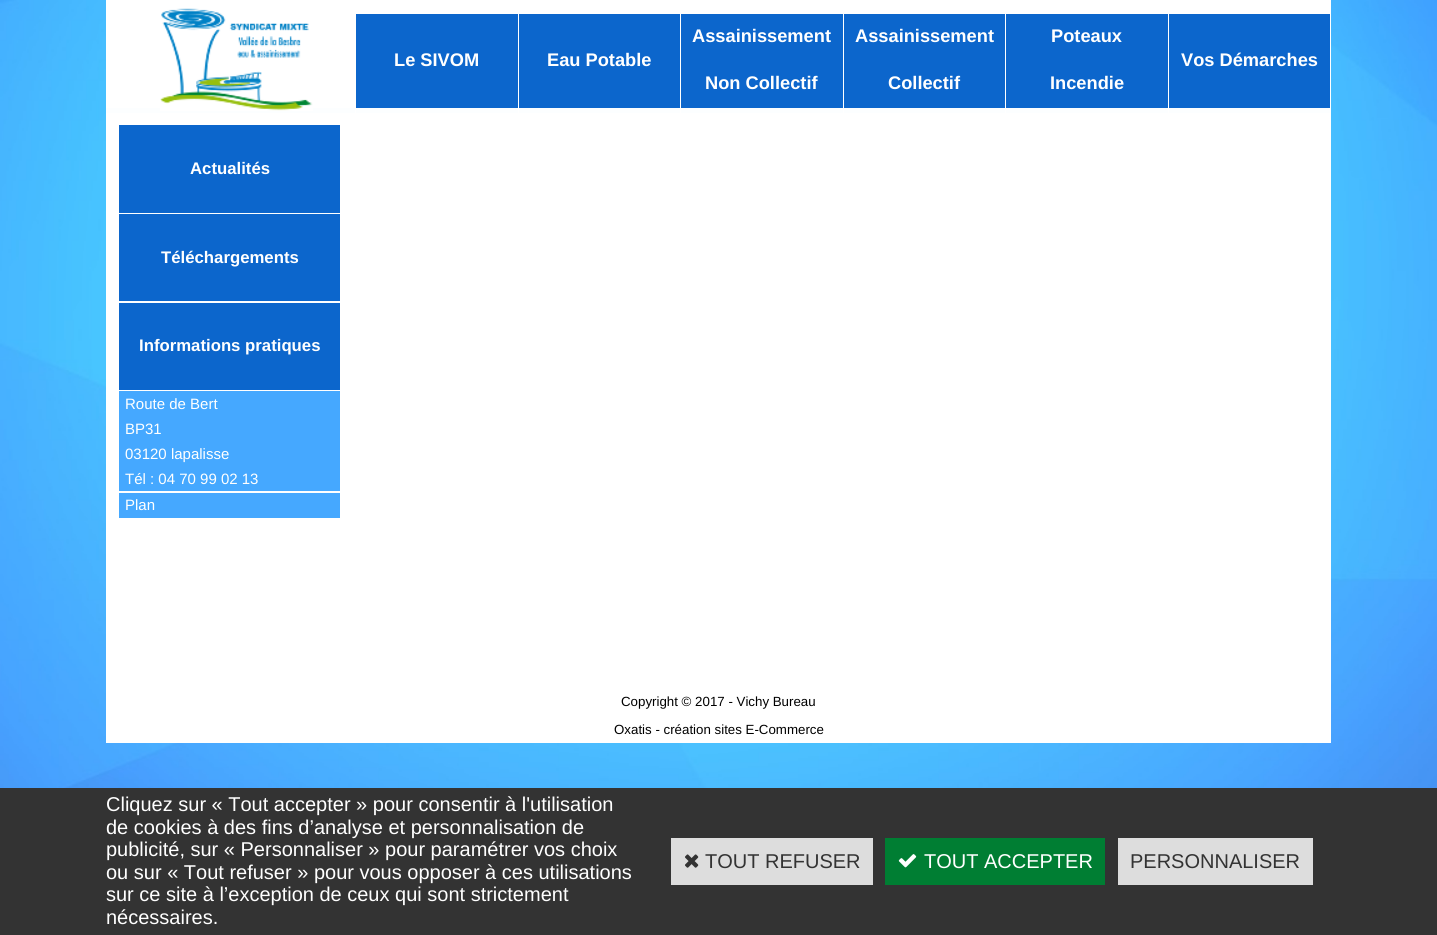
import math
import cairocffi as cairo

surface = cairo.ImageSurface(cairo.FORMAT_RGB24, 1437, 935)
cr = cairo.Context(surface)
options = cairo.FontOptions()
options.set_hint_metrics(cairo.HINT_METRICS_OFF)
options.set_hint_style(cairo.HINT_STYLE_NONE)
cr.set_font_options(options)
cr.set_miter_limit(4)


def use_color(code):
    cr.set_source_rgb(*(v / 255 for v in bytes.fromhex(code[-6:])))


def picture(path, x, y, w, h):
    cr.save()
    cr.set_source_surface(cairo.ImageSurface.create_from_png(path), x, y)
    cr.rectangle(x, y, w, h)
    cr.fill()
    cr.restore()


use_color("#ffffff")
cr.paint()
picture("img1.png", 0, 0, 1437, 788)
use_color("#ffffff")
cr.rectangle(106, 113, 1225, 630)
cr.fill()
use_color("#fcfeff")
cr.rectangle(106, 108, 1224, 5)
cr.fill()
use_color("#ffffff")
cr.rectangle(106, 0, 1224, 108)
cr.fill()
cr.rectangle(355, 108, 1, 5)
cr.fill()
picture("img2.png", 160, 8, 153, 103)
cr.rectangle(518, 108, 1, 5)
cr.fill()
use_color("#0c66cc")
cr.rectangle(356, 14, 162, 94)
cr.fill()
cr.select_font_face("Liberation Sans", cairo.FONT_SLANT_NORMAL, cairo.FONT_WEIGHT_BOLD)
cr.set_font_size(18.25)
use_color("#ffffff")
cr.move_to(394, 66)
cr.show_text("Le SIVOM")
cr.rectangle(680, 108, 1, 5)
cr.fill()
use_color("#0c66cc")
cr.rectangle(519, 14, 161, 94)
cr.fill()
use_color("#ffffff")
cr.move_to(547, 66)
cr.show_text("Eau Potable")
cr.rectangle(843, 108, 1, 5)
cr.fill()
use_color("#0c66cc")
cr.rectangle(681, 14, 162, 94)
cr.fill()
use_color("#ffffff")
cr.move_to(692, 42)
cr.show_text("Assainissement")
cr.move_to(705, 89)
cr.show_text("Non Collectif")
cr.rectangle(1005, 108, 1, 5)
cr.fill()
use_color("#0c66cc")
cr.rectangle(844, 14, 161, 94)
cr.fill()
use_color("#ffffff")
cr.move_to(855, 42)
cr.show_text("Assainissement")
cr.move_to(888, 89)
cr.show_text("Collectif")
cr.rectangle(1168, 108, 1, 5)
cr.fill()
use_color("#0c66cc")
cr.rectangle(1006, 14, 162, 94)
cr.fill()
use_color("#ffffff")
cr.move_to(1051, 42)
cr.show_text("Poteaux")
cr.move_to(1050, 89)
cr.show_text("Incendie")
cr.rectangle(1330, 0, 1, 113)
cr.fill()
use_color("#0c66cc")
cr.rectangle(1169, 14, 161, 94)
cr.fill()
use_color("#ffffff")
cr.move_to(1181, 66)
cr.show_text("Vos Démarches")
use_color("#0c66cc")
cr.rectangle(119, 125, 221, 88)
cr.fill()
cr.set_font_size(16.75)
use_color("#ffffff")
cr.move_to(190, 174)
cr.show_text("Actualités")
use_color("#0c66cc")
cr.rectangle(119, 214, 221, 87)
cr.fill()
use_color("#ffffff")
cr.move_to(161, 263)
cr.show_text("Téléchargements")
use_color("#0c66cc")
cr.rectangle(119, 303, 221, 87)
cr.fill()
use_color("#ffffff")
cr.move_to(139, 351)
cr.show_text("Informations pratiques")
use_color("#45a8ff")
cr.rectangle(119, 391, 221, 100)
cr.fill()
cr.select_font_face("Liberation Sans")
cr.set_font_size(15)
use_color("#ffffff")
cr.move_to(125, 409)
cr.show_text("Route de Bert")
cr.move_to(125, 434)
cr.show_text("BP31")
cr.move_to(125, 459)
cr.show_text("03120 lapalisse")
cr.move_to(125, 484)
cr.show_text("Tél : 04 70 99 02 13")
use_color("#45a8ff")
cr.rectangle(119, 493, 221, 25)
cr.fill()
use_color("#ffffff")
cr.move_to(125, 510)
cr.show_text("Plan")
cr.set_font_size(13.3)
use_color("#000000")
cr.move_to(621, 706)
cr.show_text("Copyright © 2017 - Vichy Bureau")
cr.move_to(614, 734)
cr.show_text("Oxatis - création sites E-Commerce")
use_color("#333333")
cr.rectangle(0, 788, 1437, 147)
cr.fill()
cr.set_font_size(20)
use_color("#ffffff")
cr.move_to(106, 811)
cr.show_text("Cliquez sur « Tout accepter » pour consentir à l'utilisation")
cr.move_to(106, 834)
cr.show_text("de cookies à des fins d’analyse et personnalisation de")
cr.move_to(106, 856)
cr.show_text("publicité, sur « Personnaliser » pour paramétrer vos choix")
cr.move_to(106, 879)
cr.show_text("ou sur « Tout refuser » pour vous opposer à ces utilisations")
cr.move_to(106, 901)
cr.show_text("sur ce site à l’exception de ceux qui sont strictement")
cr.move_to(106, 924)
cr.show_text("nécessaires.")
use_color("#dddddd")
cr.rectangle(671, 838, 202, 47)
cr.fill()
picture("img3.png", 685, 854, 14, 14)
use_color("#333333")
cr.move_to(705, 868)
cr.show_text("TOUT REFUSER")
use_color("#007e33")
cr.rectangle(885, 838, 220, 47)
cr.fill()
picture("img4.png", 898, 854, 19, 14)
use_color("#ffffff")
cr.move_to(924, 868)
cr.show_text("TOUT ACCEPTER")
use_color("#dddddd")
cr.rectangle(1118, 838, 195, 47)
cr.fill()
use_color("#333333")
cr.move_to(1130, 868)
cr.show_text("PERSONNALISER")
surface.write_to_png("result.png")
